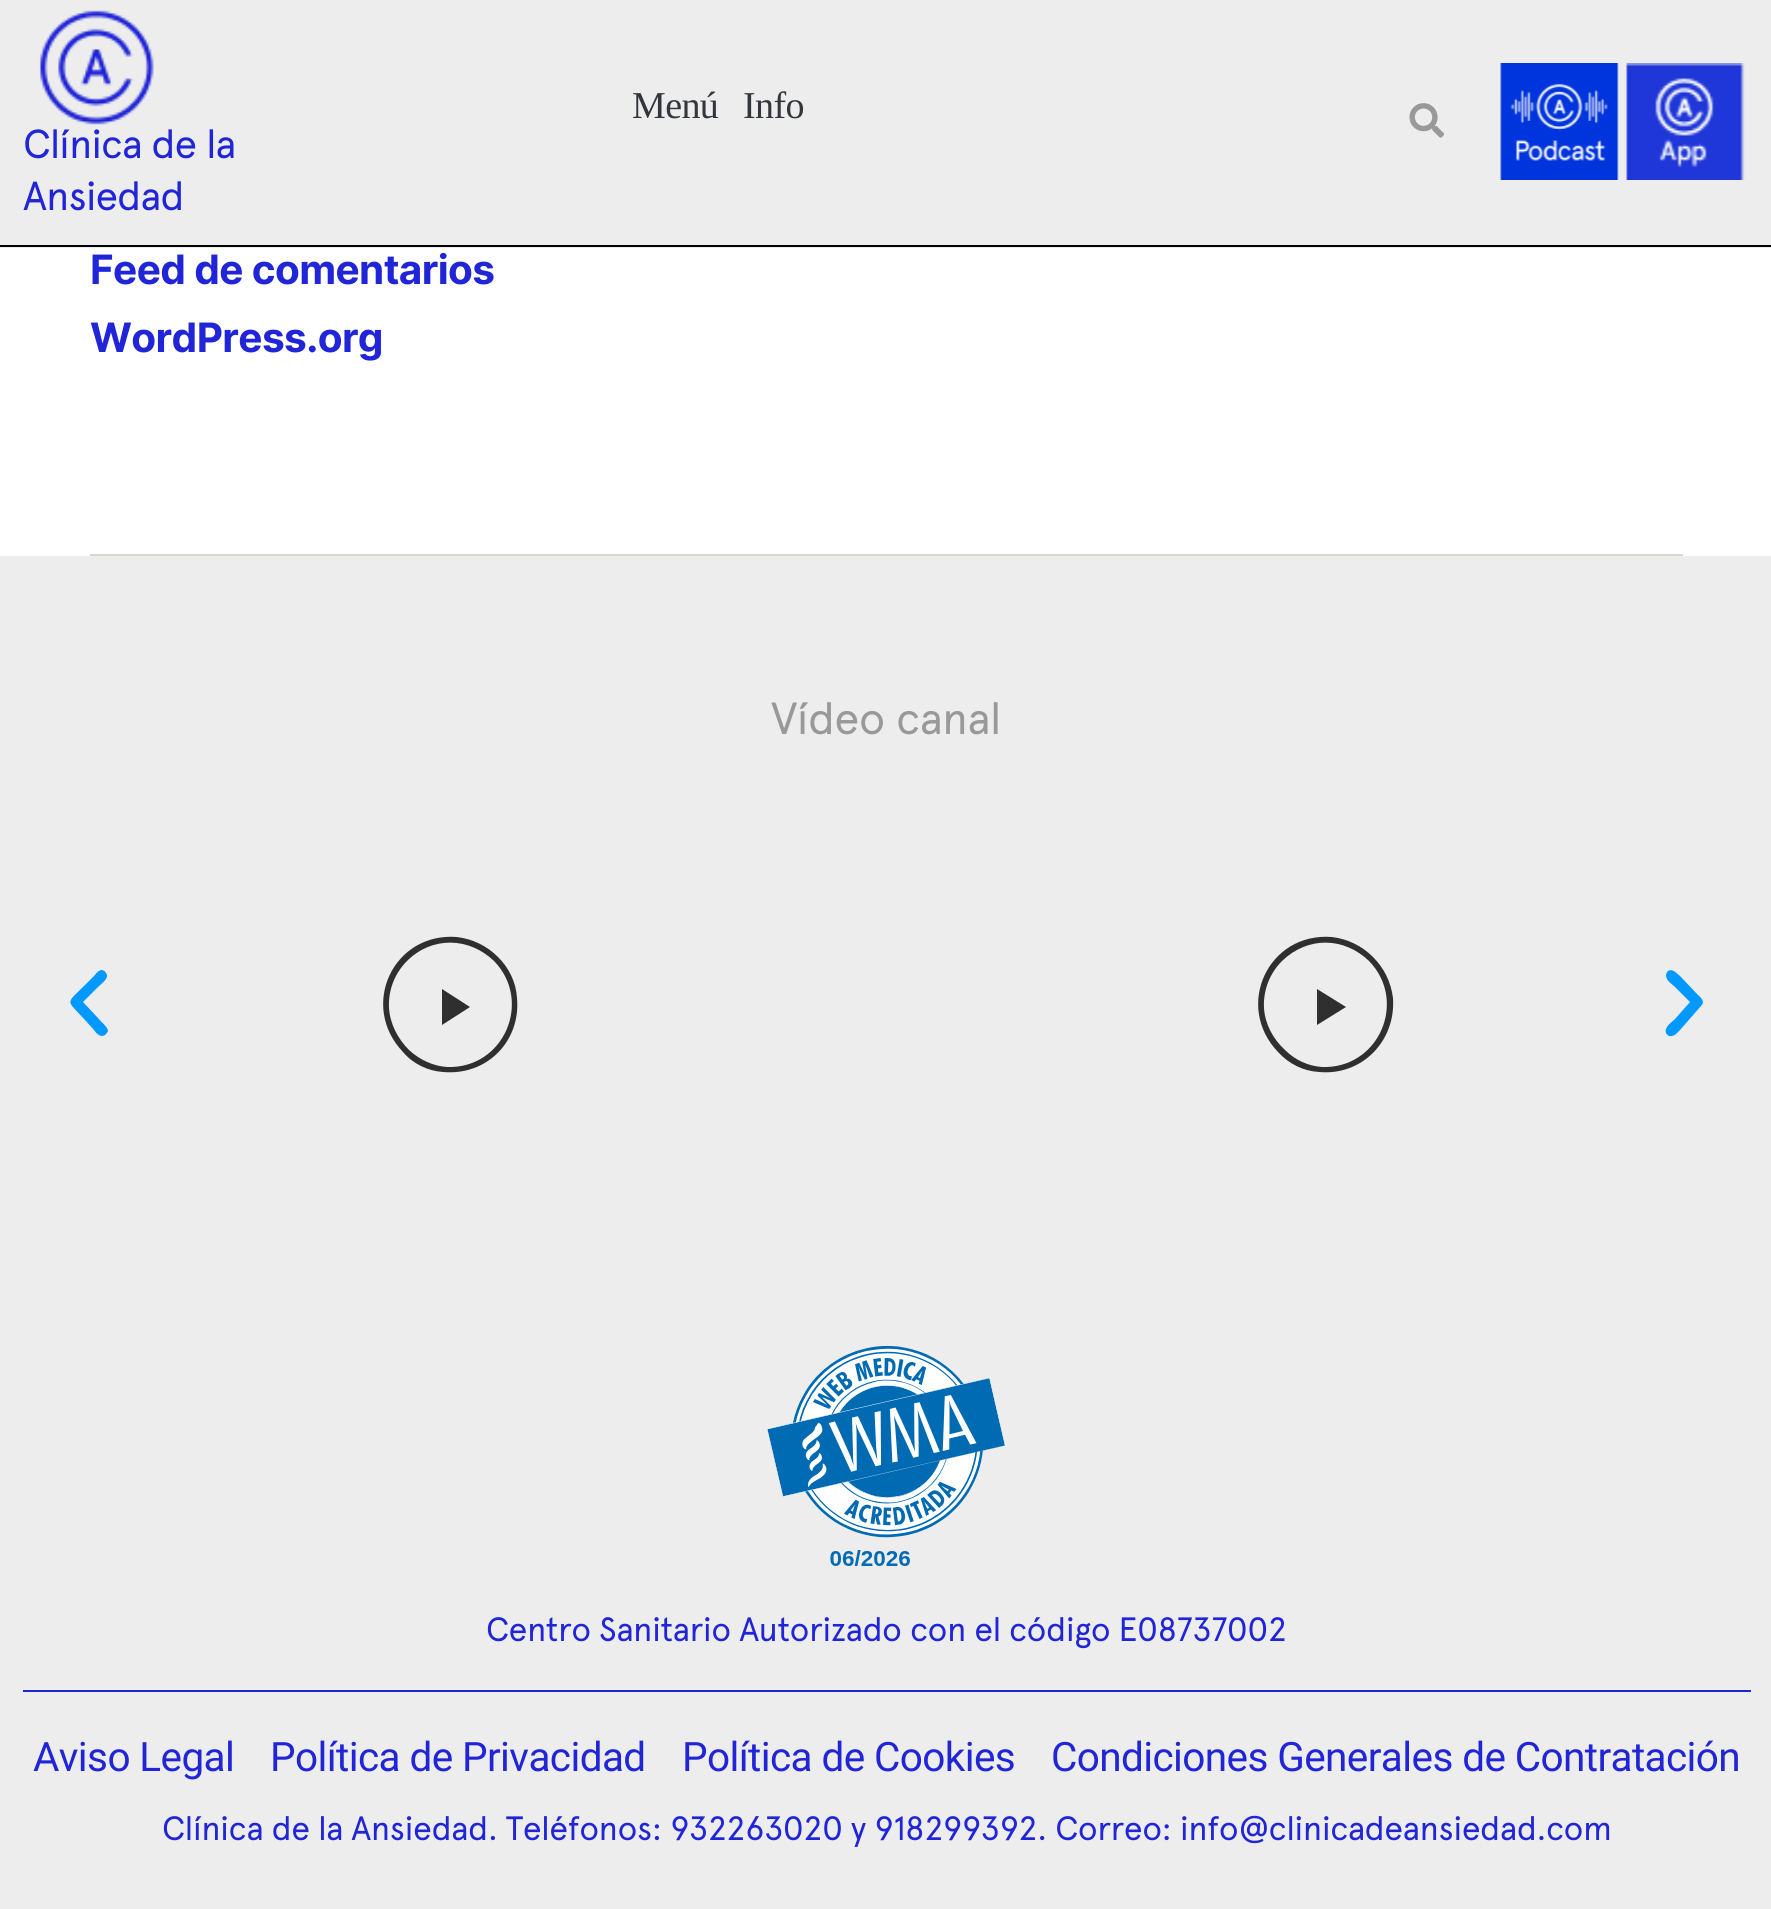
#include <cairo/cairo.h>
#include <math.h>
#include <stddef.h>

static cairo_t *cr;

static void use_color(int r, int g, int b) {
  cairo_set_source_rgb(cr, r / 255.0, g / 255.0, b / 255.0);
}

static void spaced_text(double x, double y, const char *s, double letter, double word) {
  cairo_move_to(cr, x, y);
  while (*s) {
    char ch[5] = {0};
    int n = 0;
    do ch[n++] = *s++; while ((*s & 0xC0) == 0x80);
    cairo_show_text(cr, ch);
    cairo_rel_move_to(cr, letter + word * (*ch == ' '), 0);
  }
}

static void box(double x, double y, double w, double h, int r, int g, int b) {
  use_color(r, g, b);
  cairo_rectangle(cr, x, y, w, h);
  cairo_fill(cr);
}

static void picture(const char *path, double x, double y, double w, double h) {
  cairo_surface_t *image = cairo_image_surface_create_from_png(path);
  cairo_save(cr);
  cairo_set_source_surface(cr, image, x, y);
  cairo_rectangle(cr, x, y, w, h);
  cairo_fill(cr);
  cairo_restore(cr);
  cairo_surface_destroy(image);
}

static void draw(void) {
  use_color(237, 237, 237);
  cairo_paint(cr);
  box(0, 245, 1771, 2, 0, 0, 0);
  picture("img_01.png", 1409, 103, 36, 35);
  picture("img_02.png", 1500, 63, 119, 117);
  picture("img_03.png", 1626, 63, 119, 117);
  picture("img_04.png", 40, 10, 114, 115);
  box(0, 248, 1771, 308, 255, 255, 255);
  box(90, 554, 1593, 2, 220, 215, 202);
  use_color(0, 153, 255);
  cairo_new_path(cr);
  cairo_move_to(cr, 102, 970);
  cairo_curve_to(cr, 98, 970, 96, 974, 94, 976);
  cairo_line_to(cr, 85, 985);
  cairo_curve_to(cr, 65, 1005, 66, 999, 85, 1020);
  cairo_line_to(cr, 94, 1030);
  cairo_curve_to(cr, 96, 1033, 100, 1038, 105, 1035);
  cairo_curve_to(cr, 106, 1034, 107, 1033, 108, 1031);
  cairo_curve_to(cr, 108, 1027, 100, 1021, 98, 1018);
  cairo_line_to(cr, 83, 1002);
  cairo_line_to(cr, 98, 987);
  cairo_curve_to(cr, 101, 984, 110, 978, 106, 973);
  cairo_curve_to(cr, 105, 971, 103, 970, 102, 970);
  cairo_close_path(cr);
  cairo_fill(cr);
  use_color(47, 47, 47);
  cairo_new_path(cr);
  cairo_move_to(cr, 498, 957);
  cairo_curve_to(cr, 487, 946, 473, 939, 457, 937);
  cairo_curve_to(cr, 393, 932, 359, 1006, 403, 1052);
  cairo_curve_to(cr, 413, 1064, 428, 1071, 443, 1072);
  cairo_curve_to(cr, 487, 1076, 521, 1041, 517, 998);
  cairo_curve_to(cr, 516, 982, 509, 968, 498, 957);
  cairo_close_path(cr);
  cairo_move_to(cr, 494, 961);
  cairo_curve_to(cr, 533, 1001, 504, 1069, 447, 1067);
  cairo_curve_to(cr, 433, 1066, 420, 1060, 409, 1050);
  cairo_curve_to(cr, 398, 1039, 390, 1024, 389, 1008);
  cairo_curve_to(cr, 388, 990, 395, 973, 407, 961);
  cairo_curve_to(cr, 432, 936, 469, 937, 494, 961);
  cairo_close_path(cr);
  cairo_move_to(cr, 442, 989);
  cairo_line_to(cr, 442, 1025);
  cairo_line_to(cr, 470, 1007);
  cairo_close_path(cr);
  cairo_fill(cr);
  cairo_new_path(cr);
  cairo_move_to(cr, 1373, 957);
  cairo_curve_to(cr, 1362, 946, 1348, 939, 1332, 937);
  cairo_curve_to(cr, 1268, 932, 1234, 1006, 1278, 1052);
  cairo_curve_to(cr, 1289, 1064, 1303, 1071, 1319, 1072);
  cairo_curve_to(cr, 1362, 1076, 1396, 1041, 1393, 998);
  cairo_curve_to(cr, 1391, 982, 1384, 968, 1373, 957);
  cairo_close_path(cr);
  cairo_move_to(cr, 1369, 961);
  cairo_curve_to(cr, 1408, 1001, 1379, 1069, 1322, 1067);
  cairo_curve_to(cr, 1308, 1066, 1295, 1060, 1285, 1050);
  cairo_curve_to(cr, 1273, 1039, 1265, 1024, 1264, 1008);
  cairo_curve_to(cr, 1263, 990, 1270, 973, 1282, 961);
  cairo_curve_to(cr, 1308, 936, 1344, 937, 1369, 961);
  cairo_close_path(cr);
  cairo_move_to(cr, 1317, 989);
  cairo_line_to(cr, 1317, 1025);
  cairo_line_to(cr, 1346, 1007);
  cairo_close_path(cr);
  cairo_fill(cr);
  use_color(0, 153, 255);
  cairo_new_path(cr);
  cairo_move_to(cr, 1701, 1006);
  cairo_curve_to(cr, 1706, 1001, 1700, 997, 1697, 994);
  cairo_line_to(cr, 1680, 976);
  cairo_curve_to(cr, 1677, 974, 1673, 968, 1668, 971);
  cairo_curve_to(cr, 1667, 972, 1666, 974, 1666, 975);
  cairo_curve_to(cr, 1666, 981, 1672, 984, 1675, 987);
  cairo_line_to(cr, 1690, 1002);
  cairo_line_to(cr, 1675, 1019);
  cairo_curve_to(cr, 1672, 1022, 1664, 1027, 1666, 1033);
  cairo_curve_to(cr, 1667, 1035, 1668, 1035, 1669, 1036);
  cairo_curve_to(cr, 1674, 1037, 1677, 1033, 1680, 1030);
  cairo_close_path(cr);
  cairo_fill(cr);
  picture("img_05.png", 767, 1346, 239, 220);
  box(23, 1690, 1728, 2, 32, 37, 216);
  cairo_select_font_face(cr, "Liberation Serif", CAIRO_FONT_SLANT_NORMAL, CAIRO_FONT_WEIGHT_NORMAL);
  cairo_set_font_size(cr, 38);
  use_color(51, 55, 61);
  spaced_text(632, 118, "Menú", -0.6, 0);
  spaced_text(743, 118, "Info", -0.6, 0);
  cairo_select_font_face(cr, "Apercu", CAIRO_FONT_SLANT_NORMAL, CAIRO_FONT_WEIGHT_NORMAL);
  cairo_set_font_size(cr, 40.5);
  use_color(32, 37, 216);
  spaced_text(23, 158, "Clínica de la", -1.1, 0);
  spaced_text(23, 210, "Ansiedad", -1.1, 0);
  cairo_select_font_face(cr, "Inter", CAIRO_FONT_SLANT_NORMAL, CAIRO_FONT_WEIGHT_BOLD);
  spaced_text(90, 284, "Feed de comentarios", -0.6, 0);
  spaced_text(90, 352, "WordPress.org", -0.6, 0);
  cairo_select_font_face(cr, "Apercu", CAIRO_FONT_SLANT_NORMAL, CAIRO_FONT_WEIGHT_NORMAL);
  cairo_set_font_size(cr, 45);
  use_color(153, 153, 153);
  spaced_text(771, 734, "Vídeo canal", -0.75, 0);
  cairo_set_font_size(cr, 33.75);
  use_color(32, 37, 216);
  spaced_text(486, 1641, "Centro Sanitario Autorizado con el código E08737002", -0.6, 0);
  cairo_select_font_face(cr, "Roboto", CAIRO_FONT_SLANT_NORMAL, CAIRO_FONT_WEIGHT_NORMAL);
  cairo_set_font_size(cr, 40.5);
  spaced_text(33, 1771, "Aviso Legal", -0.6, 0);
  spaced_text(270, 1771, "Política de Privacidad", -0.6, 0);
  spaced_text(682, 1771, "Política de Cookies", -0.6, 0);
  spaced_text(1051, 1771, "Condiciones Generales de Contratación", -0.6, 0);
  cairo_select_font_face(cr, "Apercu", CAIRO_FONT_SLANT_NORMAL, CAIRO_FONT_WEIGHT_NORMAL);
  cairo_set_font_size(cr, 33.75);
  spaced_text(162, 1840, "Clínica de la Ansiedad. Teléfonos: 932263020 y 918299392. Correo: info@clinicadeansiedad.com", -0.6, 0);
}

int main(void) {
  cairo_surface_t *surface = cairo_image_surface_create(CAIRO_FORMAT_RGB24, 1771, 1909);
  cr = cairo_create(surface);
  cairo_font_options_t *options = cairo_font_options_create();
  cairo_font_options_set_hint_metrics(options, CAIRO_HINT_METRICS_OFF);
  cairo_font_options_set_hint_style(options, CAIRO_HINT_STYLE_NONE);
  cairo_set_font_options(cr, options);
  cairo_set_miter_limit(cr, 4);
  draw();
  cairo_surface_write_to_png(surface, "out.png");
  cairo_font_options_destroy(options);
  cairo_destroy(cr);
  cairo_surface_destroy(surface);
  return 0;
}
